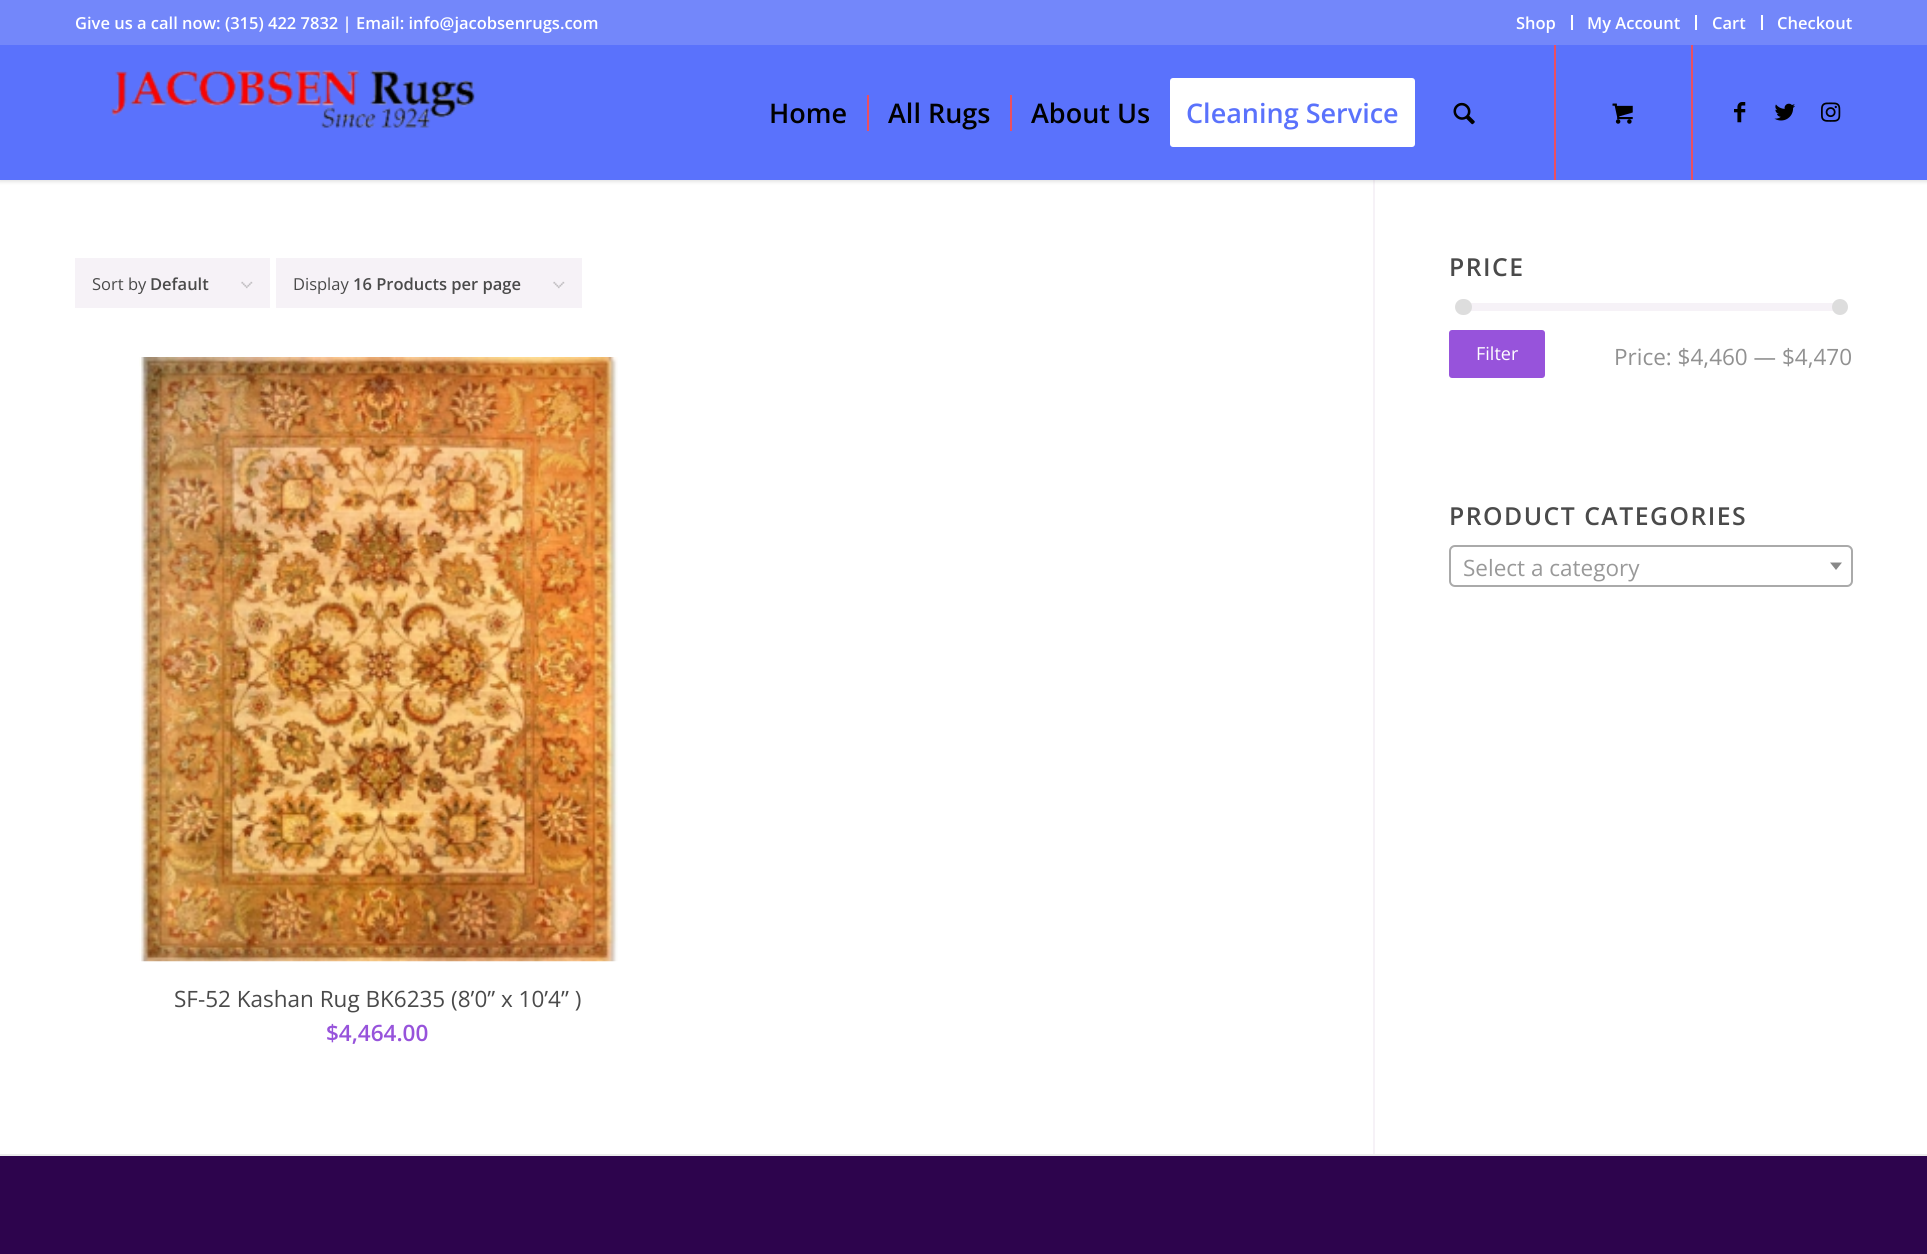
#include <cairo/cairo.h>
#include <math.h>
#include <stddef.h>

static cairo_t *cr;

static void use_color(int r, int g, int b) {
  cairo_set_source_rgb(cr, r / 255.0, g / 255.0, b / 255.0);
}

static void text(double x, double y, const char *s, const char *family, double size, int italic, int bold, int r, int g, int b) {
  cairo_select_font_face(cr, family, italic ? CAIRO_FONT_SLANT_ITALIC : CAIRO_FONT_SLANT_NORMAL,
    bold ? CAIRO_FONT_WEIGHT_BOLD : CAIRO_FONT_WEIGHT_NORMAL);
  cairo_set_font_size(cr, size);
  use_color(r, g, b);
  cairo_move_to(cr, x, y);
  cairo_show_text(cr, s);
}

static void spaced_text(double x, double y, const char *s, double letter, double word) {
  cairo_move_to(cr, x, y);
  while (*s) {
    char ch[5] = {0};
    int n = 0;
    do ch[n++] = *s++; while ((*s & 0xC0) == 0x80);
    cairo_show_text(cr, ch);
    cairo_rel_move_to(cr, letter + word * (*ch == ' '), 0);
  }
}

static void box(double x, double y, double w, double h, int r, int g, int b) {
  use_color(r, g, b);
  cairo_rectangle(cr, x, y, w, h);
  cairo_fill(cr);
}

static void round_rect(double x, double y, double w, double h, double r) {
  cairo_new_sub_path(cr);
  cairo_arc(cr, x + w - r, y + h - r, r, 0, M_PI / 2);
  cairo_arc(cr, x + r, y + h - r, r, M_PI / 2, M_PI);
  cairo_arc(cr, x + r, y + r, r, M_PI, 1.5 * M_PI);
  cairo_arc(cr, x + w - r, y + r, r, 1.5 * M_PI, 2 * M_PI);
  cairo_close_path(cr);
}

static void shadow(double x, double y, double w, double h, double r, double blur, double alpha) {
  cairo_push_group_with_content(cr, CAIRO_CONTENT_ALPHA);
  cairo_set_operator(cr, CAIRO_OPERATOR_SOURCE);
  for (int i = 15; i >= -15 && fmin(w, h) + blur * i / 3 > 0; i -= 2) {
    double e = blur * i / 6;
    cairo_set_source_rgba(cr, 0, 0, 0, alpha * erfc((i - 1) / 8.5) / 2);
    round_rect(x - e, y - e, w + 2 * e, h + 2 * e, fmax(0, fmin(r + e + blur * .6, fmin(w, h) / 2 + e)));
    cairo_fill(cr);
  }
  cairo_pattern_t *soft = cairo_pop_group(cr);
  cairo_mask(cr, soft);
  cairo_pattern_destroy(soft);
}

static void picture(const char *path, double x, double y, double w, double h) {
  cairo_surface_t *image = cairo_image_surface_create_from_png(path);
  cairo_save(cr);
  cairo_set_source_surface(cr, image, x, y);
  cairo_rectangle(cr, x, y, w, h);
  cairo_fill(cr);
  cairo_restore(cr);
  cairo_surface_destroy(image);
}

static void draw(void) {
  use_color(255, 255, 255);
  cairo_paint(cr);
  box(1373, 179, 2, 975, 246, 242, 247);
  use_color(0, 0, 0);
  shadow(-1, -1, 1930, 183, 0, 1.5, 0.1);
  box(0, 0, 1927, 45, 115, 135, 250);
  box(1571, 15, 2, 15, 255, 255, 255);
  box(1695, 15, 2, 15, 255, 255, 255);
  box(1761, 15, 2, 15, 255, 255, 255);
  box(0, 45, 1927, 135, 90, 114, 252);
  picture("img_01.png", 111, 70, 364, 58);
  box(1554, 45, 2, 135, 235, 79, 97);
  box(867, 95, 2, 36, 235, 79, 97);
  box(1010, 95, 2, 36, 235, 79, 97);
  use_color(255, 255, 255);
  round_rect(1171.5, 79.5, 242, 66, 1.5);
  cairo_fill_preserve(cr);
  cairo_set_line_width(cr, 3);
  cairo_stroke(cr);
  picture("img_02.png", 1453, 102, 22, 23);
  box(1691, 45, 2, 135, 235, 79, 97);
  picture("img_03.png", 1612, 103, 21, 21);
  picture("img_04.png", 1734, 102, 12, 21);
  picture("img_05.png", 1774, 103, 21, 18);
  picture("img_06.png", 1821, 102, 20, 20);
  box(75, 258, 195, 50, 246, 242, 247);
  picture("img_07.png", 241, 281, 12, 8);
  box(276, 258, 306, 50, 246, 242, 247);
  picture("img_07.png", 553, 281, 12, 8);
  picture("img_08.png", 139, 357, 479, 605);
  box(1463, 303, 376, 8, 246, 242, 247);
  use_color(221, 221, 221);
  round_rect(1455, 299, 17, 16, 8);
  cairo_fill(cr);
  cairo_arc(cr, 1840, 307, 8, 0, 2 * M_PI);
  cairo_fill(cr);
  use_color(151, 83, 219);
  round_rect(1449, 330, 96, 48, 3);
  cairo_fill(cr);
  round_rect(1450, 546, 402, 40, 5);
  use_color(170, 170, 170);
  cairo_set_line_width(cr, 2);
  cairo_stroke(cr);
  use_color(136, 136, 136);
  cairo_new_path(cr);
  cairo_move_to(cr, 1830, 562.5);
  cairo_line_to(cr, 1842, 562.5);
  cairo_line_to(cr, 1836, 570);
  cairo_close_path(cr);
  cairo_fill(cr);
  box(0, 1156, 1927, 98, 45, 4, 77);
  box(0, 1154, 1927, 2, 235, 235, 235);
  text(75, 29, "Give us a call now: (315) 422 7832 | Email: info@jacobsenrugs.com", "Open Sans SemiBold", 16.5, 0, 0, 255, 255, 255);
  text(1516, 29, "Shop", "Open Sans SemiBold", 16.5, 0, 0, 255, 255, 255);
  text(1587, 29, "My Account", "Open Sans SemiBold", 16.5, 0, 0, 255, 255, 255);
  text(1712, 29, "Cart", "Open Sans SemiBold", 16.5, 0, 0, 255, 255, 255);
  text(1777, 29, "Checkout", "Open Sans SemiBold", 16.5, 0, 0, 255, 255, 255);
  text(769, 123, "Home", "Open Sans SemiBold", 27, 0, 0, 0, 0, 0);
  text(888, 123, "All Rugs", "Open Sans SemiBold", 27, 0, 0, 0, 0, 0);
  text(1031, 123, "About Us", "Open Sans SemiBold", 27, 0, 0, 0, 0, 0);
  text(1186, 123, "Cleaning Service", "Open Sans SemiBold", 27, 0, 0, 90, 114, 252);
  text(92, 290, "Sort by", "Open Sans", 16.5, 0, 0, 74, 74, 74);
  text(150, 290, "Default", "Open Sans SemiBold", 16.5, 0, 0, 74, 74, 74);
  text(293, 290, "Display", "Open Sans", 16.5, 0, 0, 74, 74, 74);
  text(353, 290, "16 Products per page", "Open Sans SemiBold", 16.5, 0, 0, 74, 74, 74);
  text(174, 1007, "SF-52 Kashan Rug BK6235 (8’0” x 10’4” )", "Open Sans", 22.5, 0, 0, 74, 74, 74);
  text(326, 1041, "$4,464.00", "Open Sans SemiBold", 22.5, 0, 0, 151, 83, 219);
  cairo_set_font_size(cr, 24.75);
  use_color(74, 74, 74);
  spaced_text(1449, 276, "PRICE", 1.5, 0);
  text(1476, 360, "Filter", "Open Sans", 18, 0, 0, 255, 255, 255);
  text(1614, 365, "Price: $4,460 — $4,470", "Open Sans", 22.5, 0, 0, 145, 145, 145);
  cairo_select_font_face(cr, "Open Sans SemiBold", CAIRO_FONT_SLANT_NORMAL, CAIRO_FONT_WEIGHT_NORMAL);
  cairo_set_font_size(cr, 24.75);
  use_color(74, 74, 74);
  spaced_text(1449, 525, "PRODUCT CATEGORIES", 1.5, 0);
  text(1463, 576, "Select a category", "Open Sans", 22.5, 0, 0, 153, 153, 153);
}

int main(void) {
  cairo_surface_t *surface = cairo_image_surface_create(CAIRO_FORMAT_RGB24, 1927, 1254);
  cr = cairo_create(surface);
  cairo_font_options_t *options = cairo_font_options_create();
  cairo_font_options_set_hint_metrics(options, CAIRO_HINT_METRICS_OFF);
  cairo_font_options_set_hint_style(options, CAIRO_HINT_STYLE_NONE);
  cairo_set_font_options(cr, options);
  cairo_set_miter_limit(cr, 4);
  draw();
  cairo_surface_write_to_png(surface, "out.png");
  cairo_font_options_destroy(options);
  cairo_destroy(cr);
  cairo_surface_destroy(surface);
  return 0;
}
